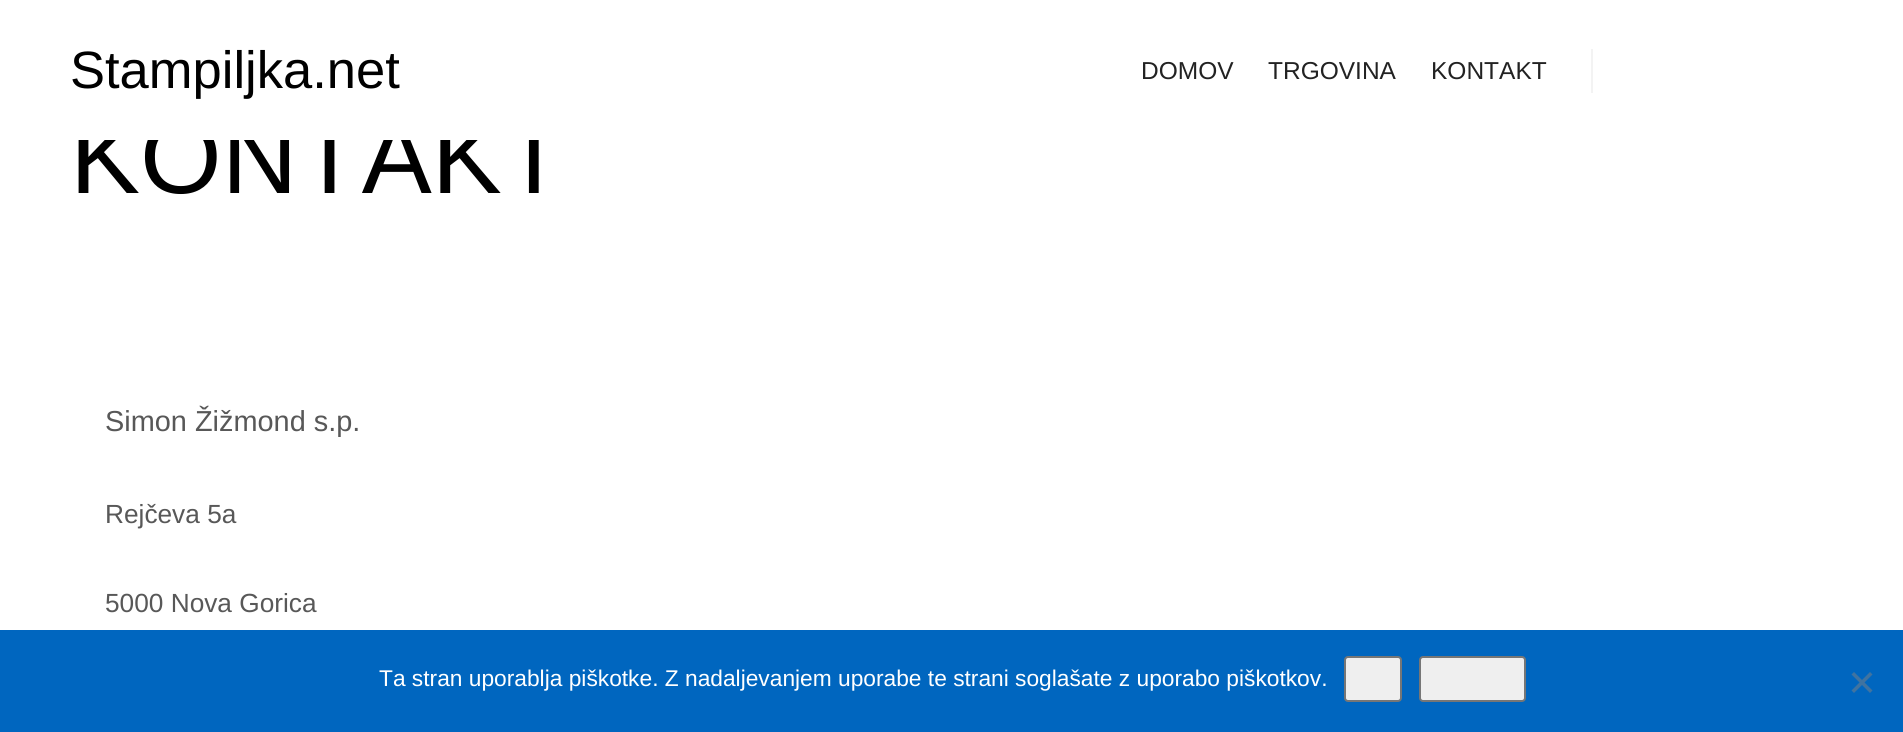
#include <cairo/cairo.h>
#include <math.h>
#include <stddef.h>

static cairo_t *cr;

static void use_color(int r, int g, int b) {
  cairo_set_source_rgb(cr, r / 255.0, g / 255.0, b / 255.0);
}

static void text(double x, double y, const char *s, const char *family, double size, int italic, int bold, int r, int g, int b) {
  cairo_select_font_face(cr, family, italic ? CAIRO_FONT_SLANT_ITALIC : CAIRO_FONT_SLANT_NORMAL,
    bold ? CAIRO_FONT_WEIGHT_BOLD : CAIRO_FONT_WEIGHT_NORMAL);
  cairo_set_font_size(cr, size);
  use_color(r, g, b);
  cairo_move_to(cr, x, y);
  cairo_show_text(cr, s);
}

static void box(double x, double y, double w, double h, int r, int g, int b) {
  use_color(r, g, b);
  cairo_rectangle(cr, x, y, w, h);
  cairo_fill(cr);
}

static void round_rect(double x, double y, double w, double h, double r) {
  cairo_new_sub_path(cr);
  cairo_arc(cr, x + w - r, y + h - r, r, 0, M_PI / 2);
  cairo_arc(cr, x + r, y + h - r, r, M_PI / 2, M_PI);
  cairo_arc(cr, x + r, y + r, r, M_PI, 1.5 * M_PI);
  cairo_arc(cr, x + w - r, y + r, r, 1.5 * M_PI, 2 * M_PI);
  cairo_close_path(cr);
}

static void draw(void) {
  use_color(255, 255, 255);
  cairo_paint(cr);
  box(1591, 49, 2, 44, 243, 243, 243);
  box(0, 630, 1903, 102, 0, 102, 191);
  use_color(239, 239, 239);
  round_rect(1345, 657, 56, 44, 3);
  cairo_fill_preserve(cr);
  use_color(118, 118, 118);
  cairo_stroke(cr);
  use_color(239, 239, 239);
  round_rect(1420, 657, 105, 44, 3);
  cairo_fill_preserve(cr);
  use_color(118, 118, 118);
  cairo_stroke(cr);
  use_color(64, 115, 160);
  cairo_new_path(cr);
  cairo_move_to(cr, 1870, 672);
  cairo_line_to(cr, 1872.5, 674.5);
  cairo_line_to(cr, 1854, 693);
  cairo_line_to(cr, 1851.5, 690.5);
  cairo_close_path(cr);
  cairo_fill(cr);
  cairo_new_path(cr);
  cairo_move_to(cr, 1851.5, 674.5);
  cairo_line_to(cr, 1854, 672);
  cairo_line_to(cr, 1872.5, 690.5);
  cairo_line_to(cr, 1870, 693);
  cairo_close_path(cr);
  cairo_fill(cr);
  text(70, 88, "Stampiljka.net", "Liberation Sans", 52.5, 0, 0, 0, 0, 0);
  text(1141, 79, "DOMOV", "Liberation Sans", 24.5, 0, 0, 34, 34, 34);
  text(1268, 79, "TRGOVINA", "Liberation Sans", 24.5, 0, 0, 34, 34, 34);
  text(1431, 79, "KONTAKT", "Liberation Sans", 24.5, 0, 0, 34, 34, 34);
  text(70, 193, "KONTAKT", "Liberation Sans", 105, 0, 0, 0, 0, 0);
  box(78, 119, 486, 21, 255, 255, 255);
  text(105, 431, "Simon Žižmond s.p.", "Liberation Sans", 28.9, 0, 0, 88, 88, 88);
  text(105, 523, "Rejčeva 5a", "Liberation Sans", 26.25, 0, 0, 88, 88, 88);
  text(105, 612, "5000 Nova Gorica", "Liberation Sans", 26.25, 0, 0, 88, 88, 88);
  text(379, 686, "Ta stran uporablja piškotke. Z nadaljevanjem uporabe te strani soglašate z uporabo piškotkov.", "Liberation Sans", 22.75, 0, 0, 255, 255, 255);
}

int main(void) {
  cairo_surface_t *surface = cairo_image_surface_create(CAIRO_FORMAT_RGB24, 1903, 732);
  cr = cairo_create(surface);
  cairo_font_options_t *options = cairo_font_options_create();
  cairo_font_options_set_hint_metrics(options, CAIRO_HINT_METRICS_OFF);
  cairo_font_options_set_hint_style(options, CAIRO_HINT_STYLE_NONE);
  cairo_set_font_options(cr, options);
  cairo_set_miter_limit(cr, 4);
  draw();
  cairo_surface_write_to_png(surface, "out.png");
  cairo_font_options_destroy(options);
  cairo_destroy(cr);
  cairo_surface_destroy(surface);
  return 0;
}
